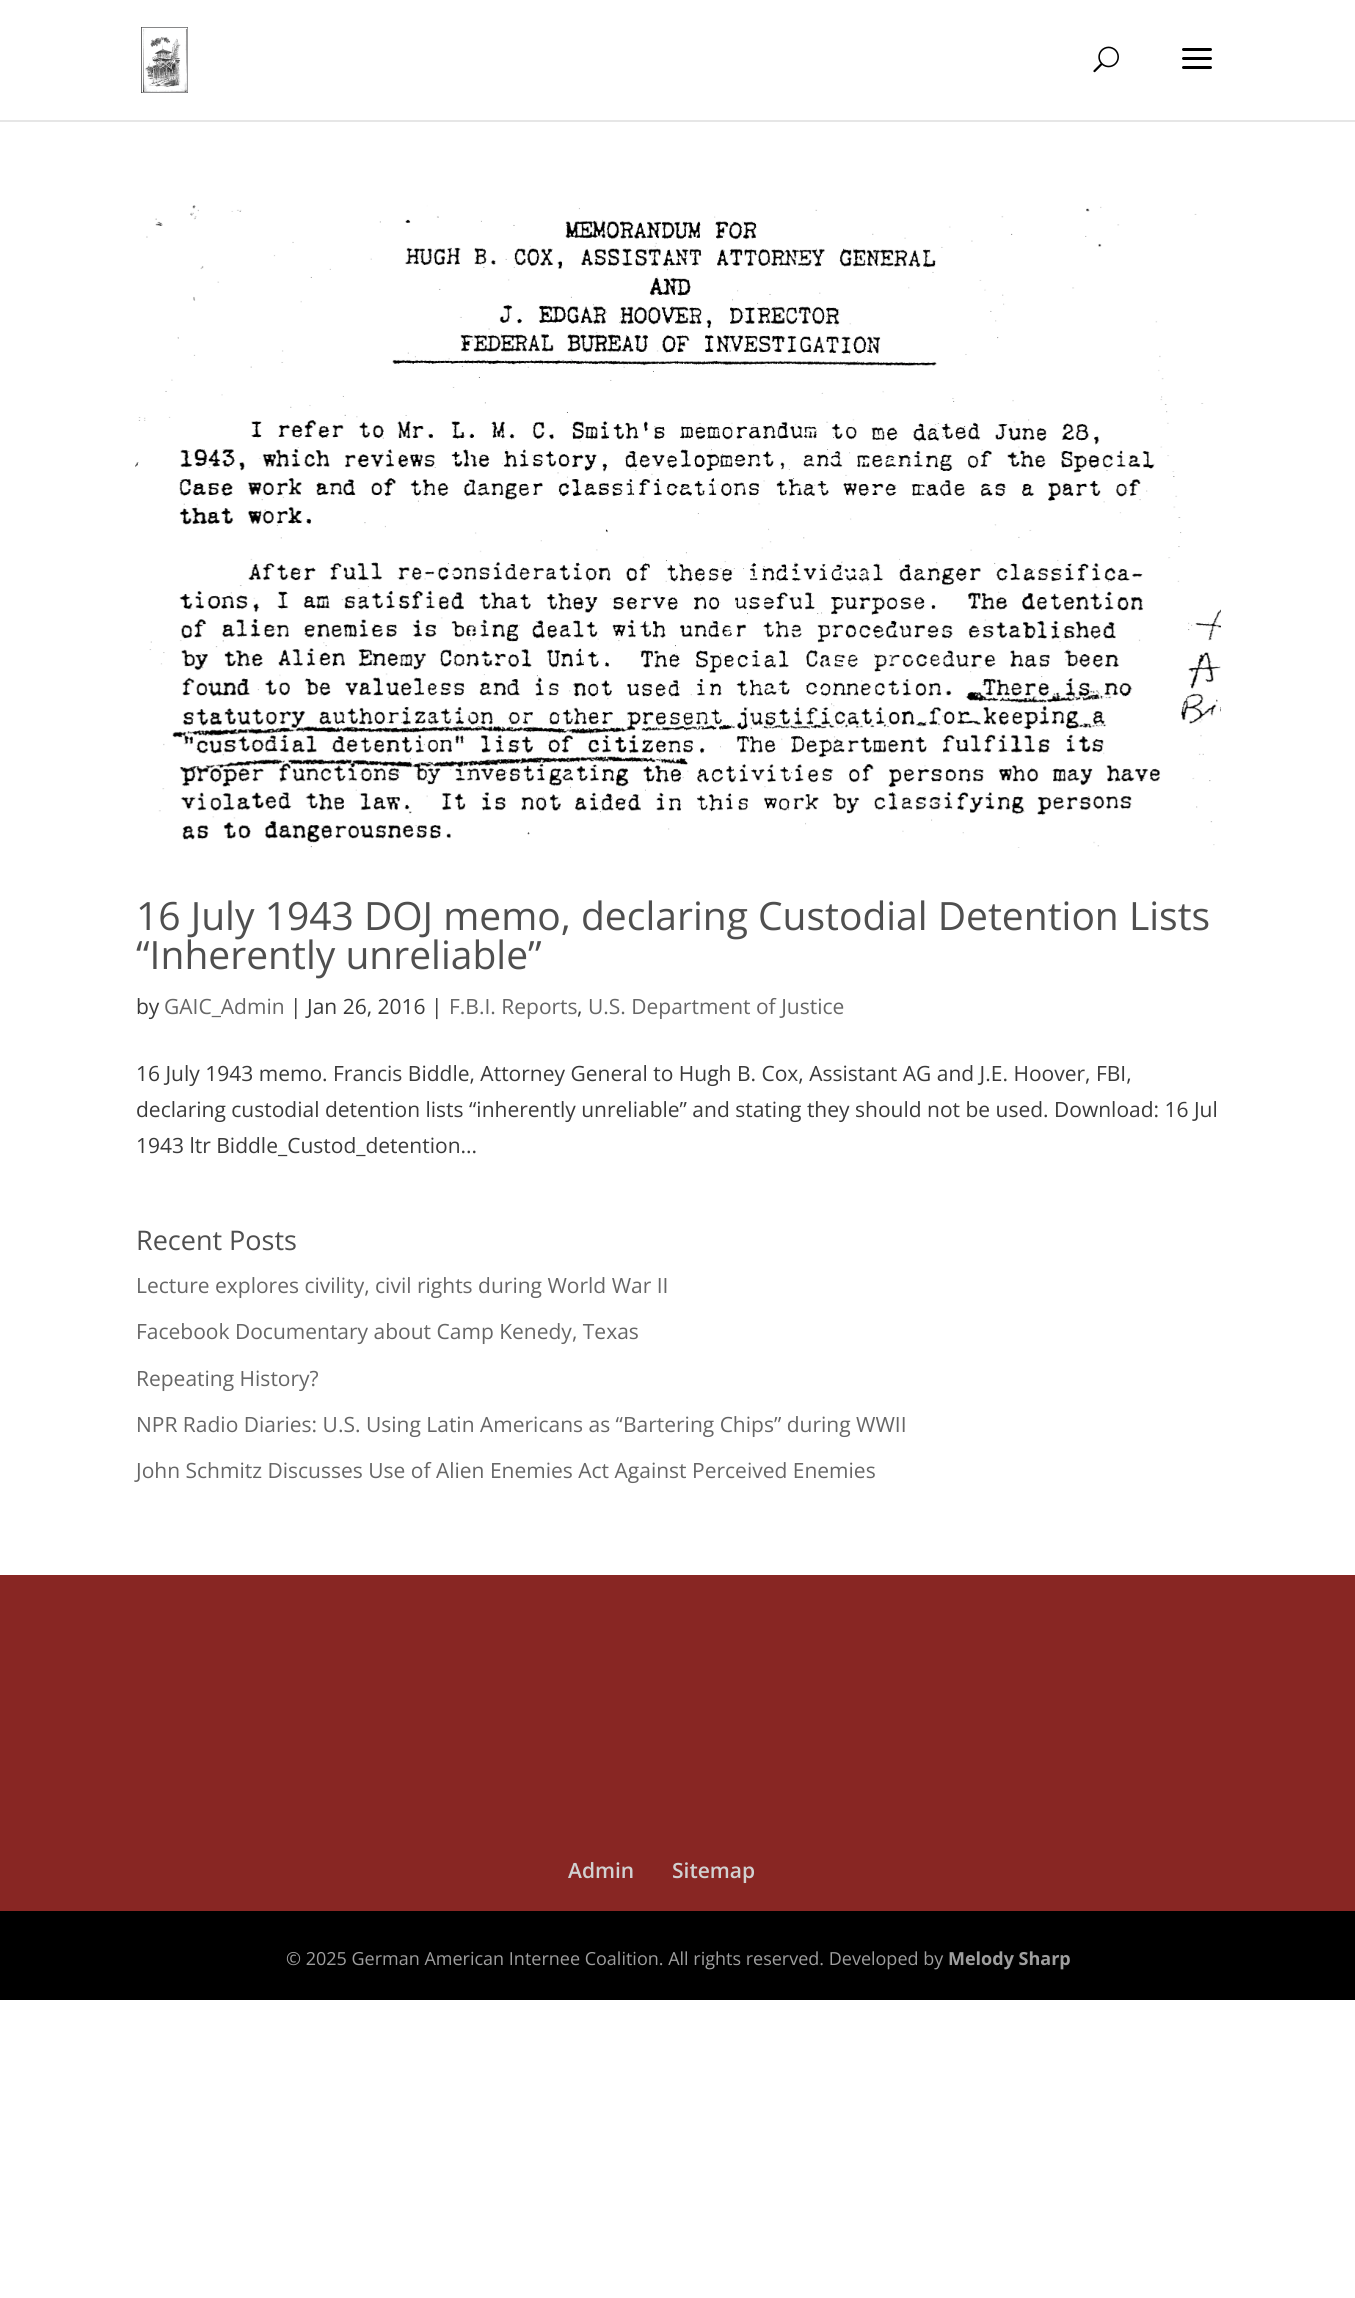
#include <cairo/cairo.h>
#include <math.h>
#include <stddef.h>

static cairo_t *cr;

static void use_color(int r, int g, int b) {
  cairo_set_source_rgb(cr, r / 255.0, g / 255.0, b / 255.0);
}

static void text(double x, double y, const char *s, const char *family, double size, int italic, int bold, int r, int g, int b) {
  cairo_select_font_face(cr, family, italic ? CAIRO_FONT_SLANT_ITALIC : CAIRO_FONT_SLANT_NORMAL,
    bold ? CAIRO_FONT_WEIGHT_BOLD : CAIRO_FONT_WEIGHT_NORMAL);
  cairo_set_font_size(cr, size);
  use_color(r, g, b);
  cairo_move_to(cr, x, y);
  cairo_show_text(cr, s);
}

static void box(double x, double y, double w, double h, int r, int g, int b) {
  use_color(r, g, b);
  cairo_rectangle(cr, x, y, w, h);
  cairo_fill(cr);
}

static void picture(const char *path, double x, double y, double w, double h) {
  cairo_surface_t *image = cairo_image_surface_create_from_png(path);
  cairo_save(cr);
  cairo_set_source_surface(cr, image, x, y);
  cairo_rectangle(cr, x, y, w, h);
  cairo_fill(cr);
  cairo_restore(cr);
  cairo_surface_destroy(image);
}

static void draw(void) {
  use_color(255, 255, 255);
  cairo_paint(cr);
  box(0, 120, 1355, 2, 230, 230, 230);
  picture("img_01.png", 141, 27, 47, 66);
  picture("img_02.png", 1093, 46, 26, 27);
  picture("img_03.png", 1182, 48, 30, 21);
  picture("img_04.png", 135, 205, 1086, 643);
  box(0, 1575, 1355, 336, 136, 38, 35);
  box(0, 1911, 1355, 89, 0, 0, 0);
  text(136, 930, "16 July 1943 DOJ memo, declaring Custodial Detention Lists", "Open Sans", 39, 0, 0, 79, 79, 79);
  text(136, 969, "“Inherently unreliable”", "Open Sans", 39, 0, 0, 79, 79, 79);
  text(136, 1014, "by", "Open Sans", 21, 0, 0, 58, 58, 58);
  text(164, 1014, "GAIC_Admin", "Open Sans", 21, 0, 0, 102, 102, 102);
  text(290, 1014, "| Jan 26, 2016 |", "Open Sans", 21, 0, 0, 58, 58, 58);
  text(449, 1014, "F.B.I. Reports", "Open Sans", 21, 0, 0, 102, 102, 102);
  text(577, 1014, ",", "Open Sans", 21, 0, 0, 58, 58, 58);
  text(588, 1014, "U.S. Department of Justice", "Open Sans", 21, 0, 0, 102, 102, 102);
  text(136, 1081, "16 July 1943 memo. Francis Biddle, Attorney General to Hugh B. Cox, Assistant AG and J.E. Hoover, FBI,", "Open Sans", 21, 0, 0, 58, 58, 58);
  text(136, 1117, "declaring custodial detention lists “inherently unreliable” and stating they should not be used. Download: 16 Jul", "Open Sans", 21, 0, 0, 58, 58, 58);
  text(136, 1153, "1943 ltr Biddle_Custod_detention...", "Open Sans", 21, 0, 0, 58, 58, 58);
  text(136, 1250, "Recent Posts", "Open Sans", 27, 0, 0, 79, 79, 79);
  text(136, 1293, "Lecture explores civility, civil rights during World War II", "Open Sans", 21, 0, 0, 102, 102, 102);
  text(136, 1339, "Facebook Documentary about Camp Kenedy, Texas", "Open Sans", 21, 0, 0, 102, 102, 102);
  text(136, 1386, "Repeating History?", "Open Sans", 21, 0, 0, 102, 102, 102);
  text(136, 1432, "NPR Radio Diaries: U.S. Using Latin Americans as “Bartering Chips” during WWII", "Open Sans", 21, 0, 0, 102, 102, 102);
  text(136, 1478, "John Schmitz Discusses Use of Alien Enemies Act Against Perceived Enemies", "Open Sans", 21, 0, 0, 102, 102, 102);
  text(568, 1878, "Admin", "Open Sans SemiBold", 21, 0, 0, 209, 209, 209);
  text(672, 1878, "Sitemap", "Open Sans SemiBold", 21, 0, 0, 209, 209, 209);
  text(286, 1965, "© 2025 German American Internee Coalition. All rights reserved. Developed by", "Open Sans", 18, 0, 0, 158, 158, 158);
  text(948, 1965, "Melody Sharp", "Open Sans", 18, 0, 1, 158, 158, 158);
}

int main(void) {
  cairo_surface_t *surface = cairo_image_surface_create(CAIRO_FORMAT_RGB24, 1355, 2298);
  cr = cairo_create(surface);
  cairo_font_options_t *options = cairo_font_options_create();
  cairo_font_options_set_hint_metrics(options, CAIRO_HINT_METRICS_OFF);
  cairo_font_options_set_hint_style(options, CAIRO_HINT_STYLE_NONE);
  cairo_set_font_options(cr, options);
  cairo_set_miter_limit(cr, 4);
  draw();
  cairo_surface_write_to_png(surface, "out.png");
  cairo_font_options_destroy(options);
  cairo_destroy(cr);
  cairo_surface_destroy(surface);
  return 0;
}
